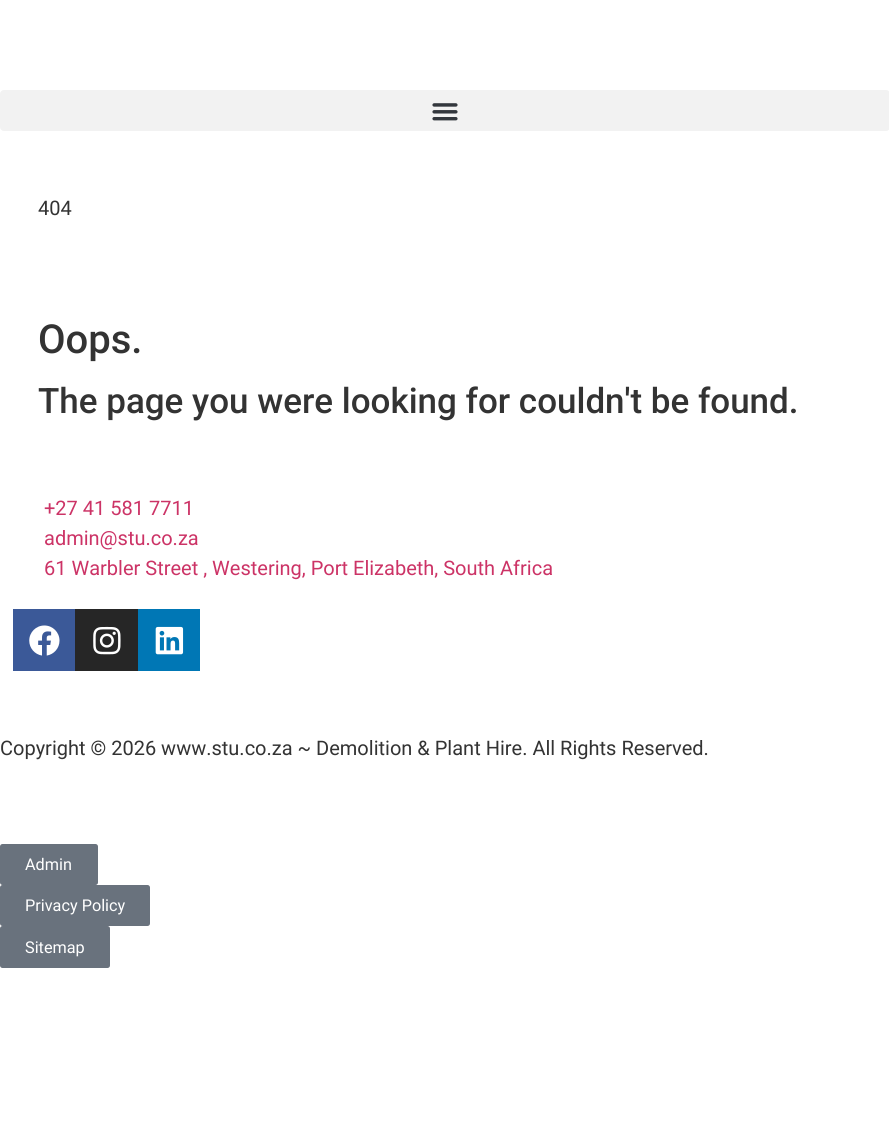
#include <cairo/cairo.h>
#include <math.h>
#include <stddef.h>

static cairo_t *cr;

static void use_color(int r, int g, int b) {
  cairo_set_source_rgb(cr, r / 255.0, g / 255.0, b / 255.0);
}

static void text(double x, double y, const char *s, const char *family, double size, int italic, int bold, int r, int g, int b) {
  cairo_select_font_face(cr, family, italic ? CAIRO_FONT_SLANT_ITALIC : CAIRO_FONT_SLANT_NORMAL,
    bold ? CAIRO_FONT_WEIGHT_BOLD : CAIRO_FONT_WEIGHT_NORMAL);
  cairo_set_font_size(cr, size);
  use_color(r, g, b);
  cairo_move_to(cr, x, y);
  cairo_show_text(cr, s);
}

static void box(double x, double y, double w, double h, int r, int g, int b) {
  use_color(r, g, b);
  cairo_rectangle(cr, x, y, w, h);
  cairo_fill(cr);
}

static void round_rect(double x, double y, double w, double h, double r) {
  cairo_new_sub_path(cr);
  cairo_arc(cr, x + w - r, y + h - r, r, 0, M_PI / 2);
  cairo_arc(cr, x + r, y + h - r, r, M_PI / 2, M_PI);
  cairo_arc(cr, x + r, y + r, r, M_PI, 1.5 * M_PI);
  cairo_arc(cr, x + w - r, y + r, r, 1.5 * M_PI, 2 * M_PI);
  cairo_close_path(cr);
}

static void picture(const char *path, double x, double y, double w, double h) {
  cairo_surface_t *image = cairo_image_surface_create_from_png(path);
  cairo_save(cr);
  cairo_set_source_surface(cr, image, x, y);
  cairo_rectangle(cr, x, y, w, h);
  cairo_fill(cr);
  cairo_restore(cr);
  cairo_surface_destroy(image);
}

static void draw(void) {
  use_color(255, 255, 255);
  cairo_paint(cr);
  use_color(242, 242, 242);
  round_rect(0, 90, 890, 41, 4);
  cairo_fill(cr);
  picture("img_01.png", 432, 103, 26, 18);
  box(13, 609, 62, 62, 59, 89, 152);
  picture("img_02.png", 29, 625, 31, 31);
  box(75, 609, 63, 62, 38, 38, 38);
  picture("img_03.png", 93, 626, 28, 29);
  box(138, 609, 62, 62, 0, 119, 181);
  picture("img_04.png", 155, 626, 29, 29);
  use_color(105, 114, 125);
  round_rect(0, 844, 98, 41, 2.5);
  cairo_fill(cr);
  round_rect(0, 885, 150, 41, 2.5);
  cairo_fill(cr);
  round_rect(0, 926, 110, 42, 2.5);
  cairo_fill(cr);
  text(38, 215, "404", "Roboto", 20, 0, 0, 51, 51, 51);
  text(38, 353, "Oops.", "Roboto Medium", 40, 0, 0, 51, 51, 51);
  text(38, 413, "The page you were looking for couldn't be found.", "Roboto Medium", 35, 0, 0, 51, 51, 51);
  text(44, 515, "+27 41 581 7711", "Roboto", 20, 0, 0, 204, 51, 102);
  text(44, 545, "admin@stu.co.za", "Roboto", 20, 0, 0, 204, 51, 102);
  text(44, 575, "61 Warbler Street , Westering, Port Elizabeth, South Africa", "Roboto", 20, 0, 0, 204, 51, 102);
  text(0, 755, "Copyright © 2026 www.stu.co.za ~ Demolition & Plant Hire. All Rights Reserved.", "Roboto", 20, 0, 0, 51, 51, 51);
  text(25, 870, "Admin", "Roboto", 16.25, 0, 0, 255, 255, 255);
  text(25, 911, "Privacy Policy", "Roboto", 16.25, 0, 0, 255, 255, 255);
  text(25, 953, "Sitemap", "Roboto", 16.25, 0, 0, 255, 255, 255);
}

int main(void) {
  cairo_surface_t *surface = cairo_image_surface_create(CAIRO_FORMAT_RGB24, 889, 1125);
  cr = cairo_create(surface);
  cairo_font_options_t *options = cairo_font_options_create();
  cairo_font_options_set_hint_metrics(options, CAIRO_HINT_METRICS_OFF);
  cairo_font_options_set_hint_style(options, CAIRO_HINT_STYLE_NONE);
  cairo_set_font_options(cr, options);
  cairo_set_miter_limit(cr, 4);
  draw();
  cairo_surface_write_to_png(surface, "out.png");
  cairo_font_options_destroy(options);
  cairo_destroy(cr);
  cairo_surface_destroy(surface);
  return 0;
}
